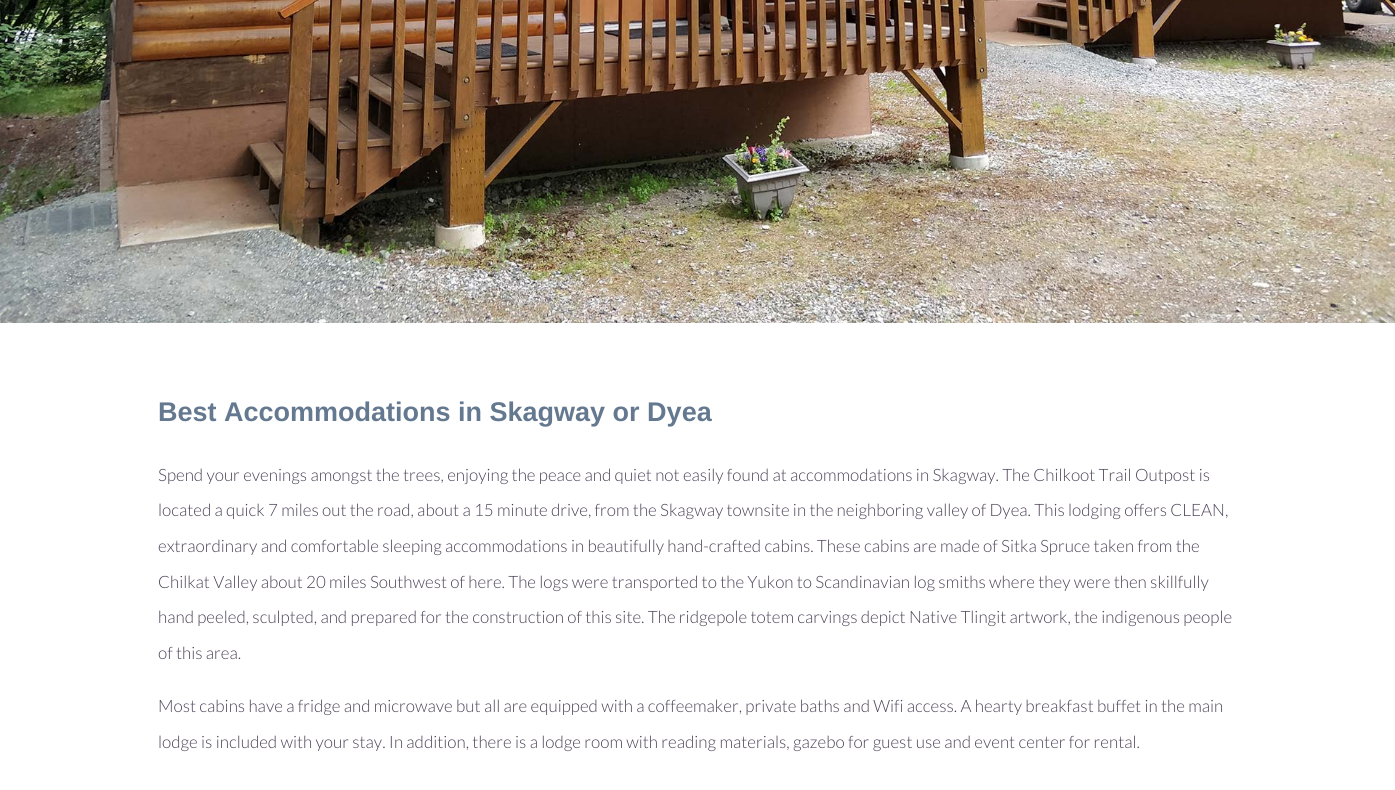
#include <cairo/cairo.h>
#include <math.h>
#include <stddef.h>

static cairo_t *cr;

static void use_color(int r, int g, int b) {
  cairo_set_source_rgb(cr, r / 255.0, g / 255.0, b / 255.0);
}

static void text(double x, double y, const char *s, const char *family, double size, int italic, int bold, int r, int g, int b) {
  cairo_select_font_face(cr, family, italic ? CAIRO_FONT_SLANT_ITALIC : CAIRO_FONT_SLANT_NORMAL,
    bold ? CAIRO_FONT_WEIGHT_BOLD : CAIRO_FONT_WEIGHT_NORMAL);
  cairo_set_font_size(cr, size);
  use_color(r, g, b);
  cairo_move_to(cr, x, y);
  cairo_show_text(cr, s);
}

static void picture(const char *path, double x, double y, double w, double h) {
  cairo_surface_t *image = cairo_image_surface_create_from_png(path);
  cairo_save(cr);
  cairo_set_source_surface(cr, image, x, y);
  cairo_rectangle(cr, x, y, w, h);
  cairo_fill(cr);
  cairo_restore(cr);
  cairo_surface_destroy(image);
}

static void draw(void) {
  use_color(255, 255, 255);
  cairo_paint(cr);
  picture("img_01.png", 0, 0, 1395, 323);
  text(158, 421, "Best Accommodations in Skagway or Dyea", "Liberation Sans", 27, 0, 1, 100, 121, 144);
  text(158, 481, "Spend your evenings amongst the trees, enjoying the peace and quiet not easily found at accommodations in Skagway. The Chilkoot Trail Outpost is", "Lato Light", 17, 0, 0, 77, 67, 88);
  text(158, 516, "located a quick 7 miles out the road, about a 15 minute drive, from the Skagway townsite in the neighboring valley of Dyea. This lodging offers CLEAN,", "Lato Light", 17, 0, 0, 77, 67, 88);
  text(158, 552, "extraordinary and comfortable sleeping accommodations in beautifully hand-crafted cabins. These cabins are made of Sitka Spruce taken from the", "Lato Light", 17, 0, 0, 77, 67, 88);
  text(158, 588, "Chilkat Valley about 20 miles Southwest of here. The logs were transported to the Yukon to Scandinavian log smiths where they were then skillfully", "Lato Light", 17, 0, 0, 77, 67, 88);
  text(158, 623, "hand peeled, sculpted, and prepared for the construction of this site. The ridgepole totem carvings depict Native Tlingit artwork, the indigenous people", "Lato Light", 17, 0, 0, 77, 67, 88);
  text(158, 659, "of this area.", "Lato Light", 17, 0, 0, 77, 67, 88);
  text(158, 712, "Most cabins have a fridge and microwave but all are equipped with a coffeemaker, private baths and Wifi access. A hearty breakfast buffet in the main", "Lato Light", 17, 0, 0, 77, 67, 88);
  text(158, 748, "lodge is included with your stay. In addition, there is a lodge room with reading materials, gazebo for guest use and event center for rental.", "Lato Light", 17, 0, 0, 77, 67, 88);
}

int main(void) {
  cairo_surface_t *surface = cairo_image_surface_create(CAIRO_FORMAT_RGB24, 1395, 790);
  cr = cairo_create(surface);
  cairo_font_options_t *options = cairo_font_options_create();
  cairo_font_options_set_hint_metrics(options, CAIRO_HINT_METRICS_OFF);
  cairo_font_options_set_hint_style(options, CAIRO_HINT_STYLE_NONE);
  cairo_set_font_options(cr, options);
  cairo_set_miter_limit(cr, 4);
  draw();
  cairo_surface_write_to_png(surface, "out.png");
  cairo_font_options_destroy(options);
  cairo_destroy(cr);
  cairo_surface_destroy(surface);
  return 0;
}
